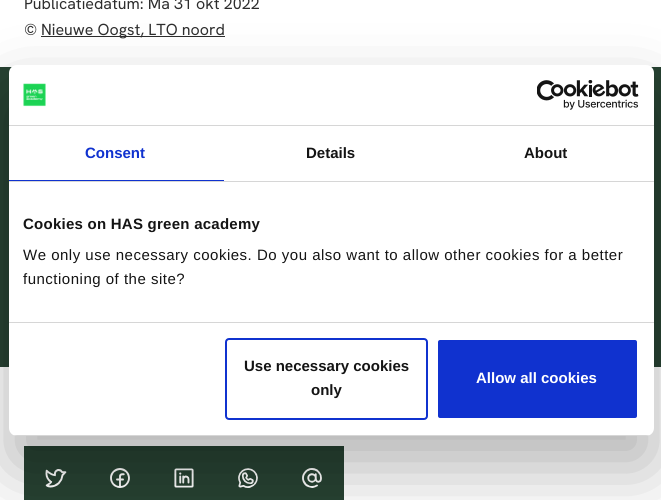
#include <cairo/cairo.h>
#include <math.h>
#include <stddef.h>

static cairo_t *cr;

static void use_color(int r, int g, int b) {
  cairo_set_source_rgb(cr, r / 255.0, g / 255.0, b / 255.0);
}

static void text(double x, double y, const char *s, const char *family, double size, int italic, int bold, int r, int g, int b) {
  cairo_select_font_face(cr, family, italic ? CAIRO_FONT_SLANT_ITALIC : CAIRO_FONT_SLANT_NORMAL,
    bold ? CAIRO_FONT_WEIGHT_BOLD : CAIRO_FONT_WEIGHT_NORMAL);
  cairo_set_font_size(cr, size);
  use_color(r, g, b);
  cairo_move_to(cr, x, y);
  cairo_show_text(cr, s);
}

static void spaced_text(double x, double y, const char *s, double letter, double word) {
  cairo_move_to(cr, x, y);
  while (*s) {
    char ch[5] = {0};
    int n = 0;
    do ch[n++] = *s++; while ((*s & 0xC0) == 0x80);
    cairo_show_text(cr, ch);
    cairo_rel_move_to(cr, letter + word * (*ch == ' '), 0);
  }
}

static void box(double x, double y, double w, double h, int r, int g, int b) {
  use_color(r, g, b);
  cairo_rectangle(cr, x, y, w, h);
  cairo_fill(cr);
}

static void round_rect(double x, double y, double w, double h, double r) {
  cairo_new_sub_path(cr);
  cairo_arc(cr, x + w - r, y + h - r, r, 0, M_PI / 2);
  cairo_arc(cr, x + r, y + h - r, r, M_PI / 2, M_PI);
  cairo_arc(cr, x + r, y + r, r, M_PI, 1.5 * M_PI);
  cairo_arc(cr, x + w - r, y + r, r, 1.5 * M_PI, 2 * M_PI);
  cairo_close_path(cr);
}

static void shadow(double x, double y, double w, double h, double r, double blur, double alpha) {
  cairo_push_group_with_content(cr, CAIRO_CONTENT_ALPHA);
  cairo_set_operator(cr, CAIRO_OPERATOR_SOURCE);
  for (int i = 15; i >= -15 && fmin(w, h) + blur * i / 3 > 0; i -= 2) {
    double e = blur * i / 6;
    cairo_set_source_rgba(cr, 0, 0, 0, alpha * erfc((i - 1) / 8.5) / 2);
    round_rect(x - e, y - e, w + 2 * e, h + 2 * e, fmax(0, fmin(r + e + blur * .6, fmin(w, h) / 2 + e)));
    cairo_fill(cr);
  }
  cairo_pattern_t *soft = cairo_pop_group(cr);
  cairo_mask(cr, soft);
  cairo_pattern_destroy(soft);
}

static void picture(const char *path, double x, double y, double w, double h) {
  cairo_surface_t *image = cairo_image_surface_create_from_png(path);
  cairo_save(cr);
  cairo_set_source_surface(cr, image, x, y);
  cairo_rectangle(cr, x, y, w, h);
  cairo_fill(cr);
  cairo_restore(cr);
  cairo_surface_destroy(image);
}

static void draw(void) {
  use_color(255, 255, 255);
  cairo_paint(cr);
  box(41, 36, 184, 1, 45, 45, 45);
  box(0, 67, 661, 300, 39, 66, 50);
  box(24, 446, 320, 54, 39, 66, 50);
  picture("img_01.png", 45, 469, 22, 19);
  picture("img_02.png", 110, 468, 20, 20);
  picture("img_03.png", 174, 468, 20, 20);
  picture("img_04.png", 238, 468, 20, 20);
  picture("img_05.png", 302, 468, 20, 20);
  use_color(0, 0, 0);
  shadow(9, 97, 645, 371, 8, 34, 0.3);
  use_color(255, 255, 255);
  round_rect(9, 65, 645, 371, 8);
  cairo_fill(cr);
  box(9, 125, 645, 1, 214, 214, 214);
  picture("img_06.png", 23, 83, 23, 24);
  picture("img_07.png", 537, 80, 102, 30);
  box(9, 181, 645, 1, 214, 214, 214);
  box(9, 180, 215, 1, 16, 50, 207);
  box(9, 322, 645, 1, 214, 214, 214);
  cairo_save(cr);
  round_rect(9, 65, 645, 371, 8);
  cairo_clip(cr);
  box(9, 435, 645, 1, 214, 214, 214);
  cairo_restore(cr);
  round_rect(226, 339, 201, 80, 3);
  use_color(16, 50, 207);
  cairo_stroke(cr);
  round_rect(437, 339, 201, 80, 3);
  cairo_fill_preserve(cr);
  use_color(255, 255, 255);
  cairo_stroke(cr);
  text(24, 9, "Publicatiedatum: Ma 31 okt 2022", "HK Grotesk", 16, 0, 0, 45, 45, 45);
  text(24, 35, "©", "HK Grotesk", 16, 0, 0, 45, 45, 45);
  text(41, 35, "Nieuwe Oogst, LTO noord", "HK Grotesk", 16, 0, 0, 45, 45, 45);
  text(85, 158, "Consent", "Liberation Sans", 15, 0, 1, 16, 50, 207);
  text(306, 158, "Details", "Liberation Sans", 15, 0, 1, 20, 20, 20);
  text(524, 158, "About", "Liberation Sans", 15, 0, 1, 20, 20, 20);
  spaced_text(23, 229, "Cookies on HAS green academy", 0.25, 0);
  cairo_select_font_face(cr, "Liberation Sans", CAIRO_FONT_SLANT_NORMAL, CAIRO_FONT_WEIGHT_NORMAL);
  spaced_text(23, 260, "We only use necessary cookies. Do you also want to allow other cookies for a better", 0.5, 0);
  spaced_text(23, 284, "functioning of the site?", 0.5, 0);
  text(244, 371, "Use necessary cookies", "Liberation Sans", 15, 0, 1, 20, 20, 20);
  text(311, 395, "only", "Liberation Sans", 15, 0, 1, 20, 20, 20);
  text(476, 383, "Allow all cookies", "Liberation Sans", 15, 0, 1, 255, 255, 255);
}

int main(void) {
  cairo_surface_t *surface = cairo_image_surface_create(CAIRO_FORMAT_RGB24, 661, 500);
  cr = cairo_create(surface);
  cairo_font_options_t *options = cairo_font_options_create();
  cairo_font_options_set_hint_metrics(options, CAIRO_HINT_METRICS_OFF);
  cairo_font_options_set_hint_style(options, CAIRO_HINT_STYLE_NONE);
  cairo_set_font_options(cr, options);
  cairo_set_miter_limit(cr, 4);
  draw();
  cairo_surface_write_to_png(surface, "out.png");
  cairo_font_options_destroy(options);
  cairo_destroy(cr);
  cairo_surface_destroy(surface);
  return 0;
}
